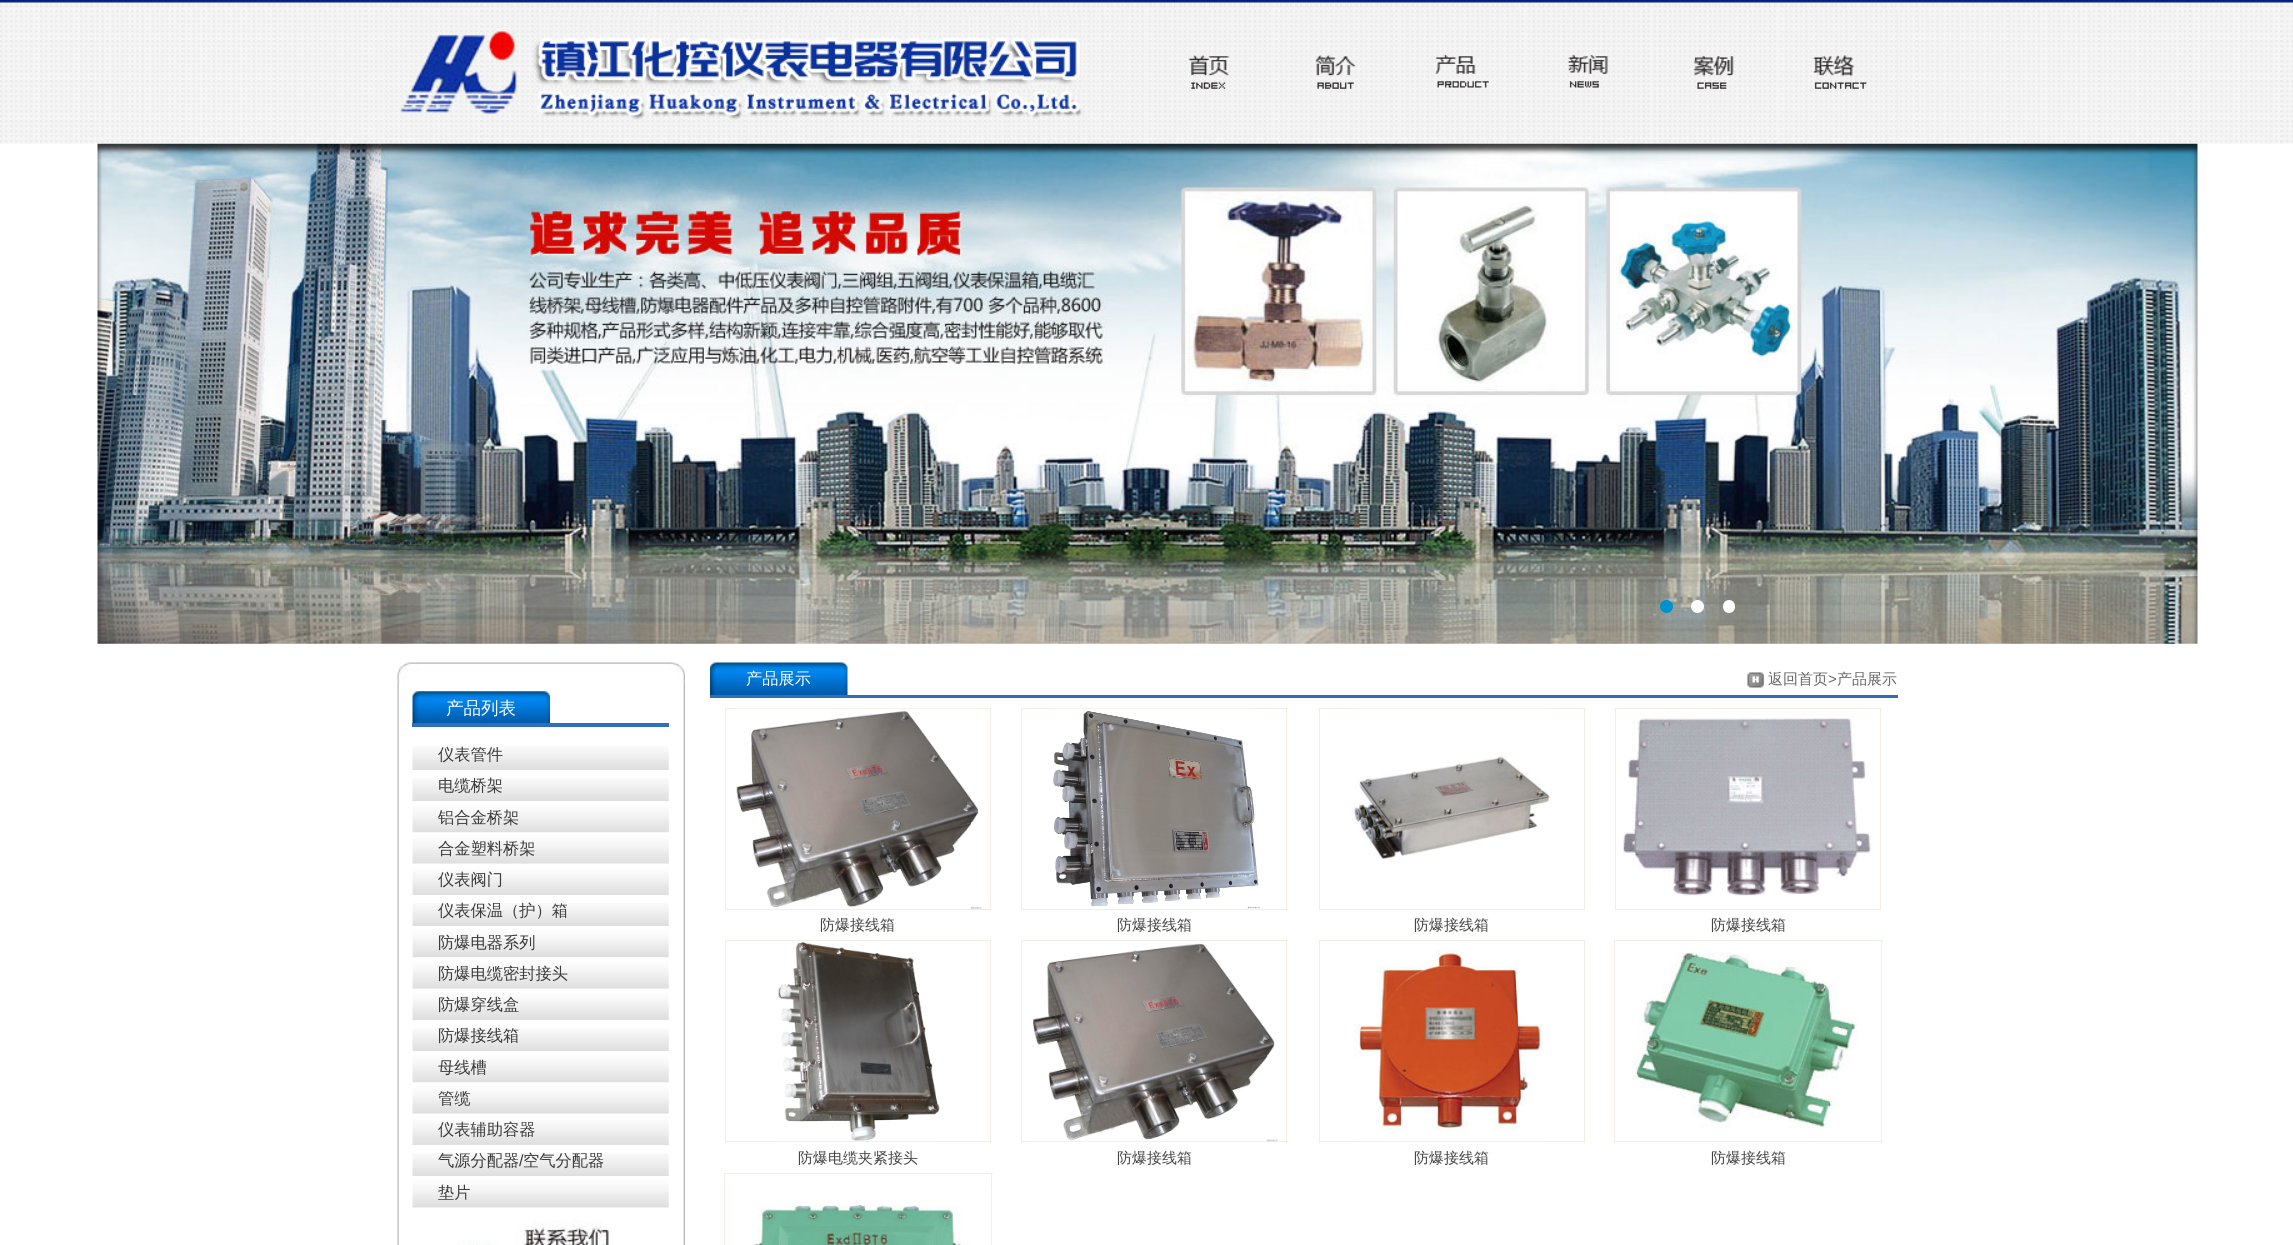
#include <cairo/cairo.h>
#include <math.h>
#include <stddef.h>

static cairo_t *cr;

static void use_color(int r, int g, int b) {
  cairo_set_source_rgb(cr, r / 255.0, g / 255.0, b / 255.0);
}

static void text(double x, double y, const char *s, const char *family, double size, int italic, int bold, int r, int g, int b) {
  cairo_select_font_face(cr, family, italic ? CAIRO_FONT_SLANT_ITALIC : CAIRO_FONT_SLANT_NORMAL,
    bold ? CAIRO_FONT_WEIGHT_BOLD : CAIRO_FONT_WEIGHT_NORMAL);
  cairo_set_font_size(cr, size);
  use_color(r, g, b);
  cairo_move_to(cr, x, y);
  cairo_show_text(cr, s);
}

static void box(double x, double y, double w, double h, int r, int g, int b) {
  use_color(r, g, b);
  cairo_rectangle(cr, x, y, w, h);
  cairo_fill(cr);
}

static void round_rect(double x, double y, double w, double h, double r) {
  cairo_new_sub_path(cr);
  cairo_arc(cr, x + w - r, y + h - r, r, 0, M_PI / 2);
  cairo_arc(cr, x + r, y + h - r, r, M_PI / 2, M_PI);
  cairo_arc(cr, x + r, y + r, r, M_PI, 1.5 * M_PI);
  cairo_arc(cr, x + w - r, y + r, r, 1.5 * M_PI, 2 * M_PI);
  cairo_close_path(cr);
}

static void picture(const char *path, double x, double y, double w, double h) {
  cairo_surface_t *image = cairo_image_surface_create_from_png(path);
  cairo_save(cr);
  cairo_set_source_surface(cr, image, x, y);
  cairo_rectangle(cr, x, y, w, h);
  cairo_fill(cr);
  cairo_restore(cr);
  cairo_surface_destroy(image);
}

static void draw(void) {
  use_color(255, 255, 255);
  cairo_paint(cr);
  picture("img_01.png", 0, 0, 2293, 144);
  picture("img_02.png", 390, 3, 756, 141);
  picture("img_03.png", 1146, 2, 127, 142);
  picture("img_04.png", 1273, 3, 125, 141);
  picture("img_05.png", 1399, 3, 125, 141);
  picture("img_06.png", 1525, 3, 124, 141);
  picture("img_07.png", 1652, 3, 125, 141);
  picture("img_08.png", 1779, 3, 122, 141);
  picture("img_09.png", 97, 143, 2101, 501);
  use_color(0, 146, 206);
  cairo_arc(cr, 1666.5, 606.5, 6.5, 0, 2 * M_PI);
  cairo_fill(cr);
  use_color(255, 255, 255);
  cairo_arc(cr, 1697.5, 606.5, 6.5, 0, 2 * M_PI);
  cairo_fill(cr);
  round_rect(1723, 600, 12, 13, 6);
  cairo_fill(cr);
  picture("img_11.png", 397, 681, 288, 564);
  picture("img_10.png", 397, 662, 288, 20);
  picture("img_12.png", 412, 691, 138, 32);
  box(412, 723, 257, 4, 47, 110, 187);
  picture("img_13.png", 412, 746, 257, 24);
  picture("img_14.png", 412, 778, 257, 24);
  picture("img_15.png", 412, 801, 257, 32);
  picture("img_16.png", 412, 832, 257, 32);
  picture("img_17.png", 412, 863, 257, 32);
  picture("img_14.png", 412, 903, 257, 24);
  picture("img_15.png", 412, 926, 257, 32);
  picture("img_16.png", 412, 957, 257, 32);
  picture("img_17.png", 412, 988, 257, 32);
  picture("img_14.png", 412, 1028, 257, 24);
  picture("img_15.png", 412, 1051, 257, 32);
  picture("img_16.png", 412, 1082, 257, 32);
  picture("img_17.png", 412, 1113, 257, 32);
  picture("img_14.png", 412, 1153, 257, 24);
  picture("img_15.png", 412, 1176, 257, 32);
  picture("img_18.png", 456, 1220, 156, 25);
  picture("img_19.png", 710, 662, 138, 33);
  picture("img_20.png", 1747, 672, 17, 16);
  box(710, 695, 1188, 3, 47, 110, 187);
  box(725, 708, 266, 1, 242, 238, 227);
  box(990, 708, 1, 202, 242, 238, 227);
  box(725, 909, 266, 1, 242, 238, 227);
  box(725, 708, 1, 202, 242, 238, 227);
  picture("img_21.png", 735, 708, 247, 201);
  box(1021, 708, 267, 1, 242, 238, 227);
  box(1286, 708, 1, 202, 242, 238, 227);
  box(1021, 909, 267, 1, 242, 238, 227);
  box(1021, 708, 1, 202, 242, 238, 227);
  picture("img_22.png", 1050, 708, 210, 201);
  box(1319, 708, 266, 1, 242, 238, 227);
  box(1584, 708, 1, 202, 242, 238, 227);
  box(1319, 909, 266, 1, 242, 238, 227);
  box(1319, 708, 1, 202, 242, 238, 227);
  picture("img_23.png", 1351, 708, 200, 152);
  box(1615, 708, 266, 1, 242, 238, 227);
  box(1880, 708, 1, 202, 242, 238, 227);
  box(1615, 909, 266, 1, 242, 238, 227);
  box(1615, 708, 1, 202, 242, 238, 227);
  picture("img_24.png", 1623, 718, 248, 178);
  box(725, 940, 266, 1, 242, 238, 227);
  box(990, 940, 1, 203, 242, 238, 227);
  box(725, 1141, 266, 1, 242, 238, 227);
  box(725, 940, 1, 203, 242, 238, 227);
  picture("img_25.png", 776, 942, 164, 200);
  box(1021, 940, 267, 1, 242, 238, 227);
  box(1286, 940, 1, 203, 242, 238, 227);
  box(1021, 1141, 267, 1, 242, 238, 227);
  box(1021, 940, 1, 203, 242, 238, 227);
  picture("img_26.png", 1031, 943, 247, 199);
  box(1319, 940, 266, 1, 242, 238, 227);
  box(1584, 940, 1, 203, 242, 238, 227);
  box(1319, 1141, 266, 1, 242, 238, 227);
  box(1319, 940, 1, 203, 242, 238, 227);
  picture("img_27.png", 1354, 949, 195, 193);
  box(1614, 940, 269, 1, 242, 238, 227);
  box(1881, 940, 1, 203, 242, 238, 227);
  box(1614, 1141, 269, 1, 242, 238, 227);
  box(1614, 940, 1, 203, 242, 238, 227);
  picture("img_28.png", 1632, 943, 250, 197);
  box(724, 1173, 269, 1, 242, 238, 227);
  box(991, 1173, 1, 72, 242, 238, 227);
  box(724, 1173, 1, 72, 242, 238, 227);
  picture("img_29.png", 754, 1188, 238, 57);
  text(446, 714, "产品列表", "WenQuanYi Zen Hei Medium", 17.5, 0, 0, 255, 255, 255);
  text(438, 760, "仪表管件", "WenQuanYi Zen Hei Medium", 16.25, 0, 0, 59, 59, 59);
  text(438, 791, "电缆桥架", "WenQuanYi Zen Hei Medium", 16.25, 0, 0, 59, 59, 59);
  text(438, 823, "铝合金桥架", "WenQuanYi Zen Hei Medium", 16.25, 0, 0, 59, 59, 59);
  text(438, 854, "合金塑料桥架", "WenQuanYi Zen Hei Medium", 16.25, 0, 0, 59, 59, 59);
  text(438, 885, "仪表阀门", "WenQuanYi Zen Hei Medium", 16.25, 0, 0, 59, 59, 59);
  text(438, 916, "仪表保温（护）箱", "WenQuanYi Zen Hei Medium", 16.25, 0, 0, 59, 59, 59);
  text(438, 948, "防爆电器系列", "WenQuanYi Zen Hei Medium", 16.25, 0, 0, 59, 59, 59);
  text(438, 979, "防爆电缆密封接头", "WenQuanYi Zen Hei Medium", 16.25, 0, 0, 59, 59, 59);
  text(438, 1010, "防爆穿线盒", "WenQuanYi Zen Hei Medium", 16.25, 0, 0, 59, 59, 59);
  text(438, 1041, "防爆接线箱", "WenQuanYi Zen Hei Medium", 16.25, 0, 0, 59, 59, 59);
  text(438, 1073, "母线槽", "WenQuanYi Zen Hei Medium", 16.25, 0, 0, 59, 59, 59);
  text(438, 1104, "管缆", "WenQuanYi Zen Hei Medium", 16.25, 0, 0, 59, 59, 59);
  text(438, 1135, "仪表辅助容器", "WenQuanYi Zen Hei Medium", 16.25, 0, 0, 59, 59, 59);
  text(438, 1166, "气源分配器", "WenQuanYi Zen Hei Medium", 16.25, 0, 0, 59, 59, 59);
  text(519, 1166, "/", "Liberation Sans", 16.25, 0, 0, 59, 59, 59);
  text(523, 1166, "空气分配器", "WenQuanYi Zen Hei Medium", 16.25, 0, 0, 59, 59, 59);
  text(438, 1198, "垫片", "WenQuanYi Zen Hei Medium", 16.25, 0, 0, 59, 59, 59);
  text(746, 684, "产品展示", "WenQuanYi Zen Hei Medium", 16.25, 0, 0, 255, 255, 255);
  text(1768, 684, "返回首页", "WenQuanYi Zen Hei Medium", 15, 0, 0, 102, 102, 102);
  text(1828, 684, ">", "Liberation Sans", 15, 0, 0, 102, 102, 102);
  text(1837, 684, "产品展示", "WenQuanYi Zen Hei Medium", 15, 0, 0, 102, 102, 102);
  text(820, 930, "防爆接线箱", "WenQuanYi Zen Hei Medium", 15, 0, 0, 69, 69, 69);
  text(1117, 930, "防爆接线箱", "WenQuanYi Zen Hei Medium", 15, 0, 0, 69, 69, 69);
  text(1414, 930, "防爆接线箱", "WenQuanYi Zen Hei Medium", 15, 0, 0, 69, 69, 69);
  text(1711, 930, "防爆接线箱", "WenQuanYi Zen Hei Medium", 15, 0, 0, 69, 69, 69);
  text(798, 1163, "防爆电缆夹紧接头", "WenQuanYi Zen Hei Medium", 15, 0, 0, 69, 69, 69);
  text(1117, 1163, "防爆接线箱", "WenQuanYi Zen Hei Medium", 15, 0, 0, 69, 69, 69);
  text(1414, 1163, "防爆接线箱", "WenQuanYi Zen Hei Medium", 15, 0, 0, 69, 69, 69);
  text(1711, 1163, "防爆接线箱", "WenQuanYi Zen Hei Medium", 15, 0, 0, 69, 69, 69);
}

int main(void) {
  cairo_surface_t *surface = cairo_image_surface_create(CAIRO_FORMAT_RGB24, 2293, 1245);
  cr = cairo_create(surface);
  cairo_font_options_t *options = cairo_font_options_create();
  cairo_font_options_set_hint_metrics(options, CAIRO_HINT_METRICS_OFF);
  cairo_font_options_set_hint_style(options, CAIRO_HINT_STYLE_NONE);
  cairo_set_font_options(cr, options);
  cairo_set_miter_limit(cr, 4);
  draw();
  cairo_surface_write_to_png(surface, "out.png");
  cairo_font_options_destroy(options);
  cairo_destroy(cr);
  cairo_surface_destroy(surface);
  return 0;
}
